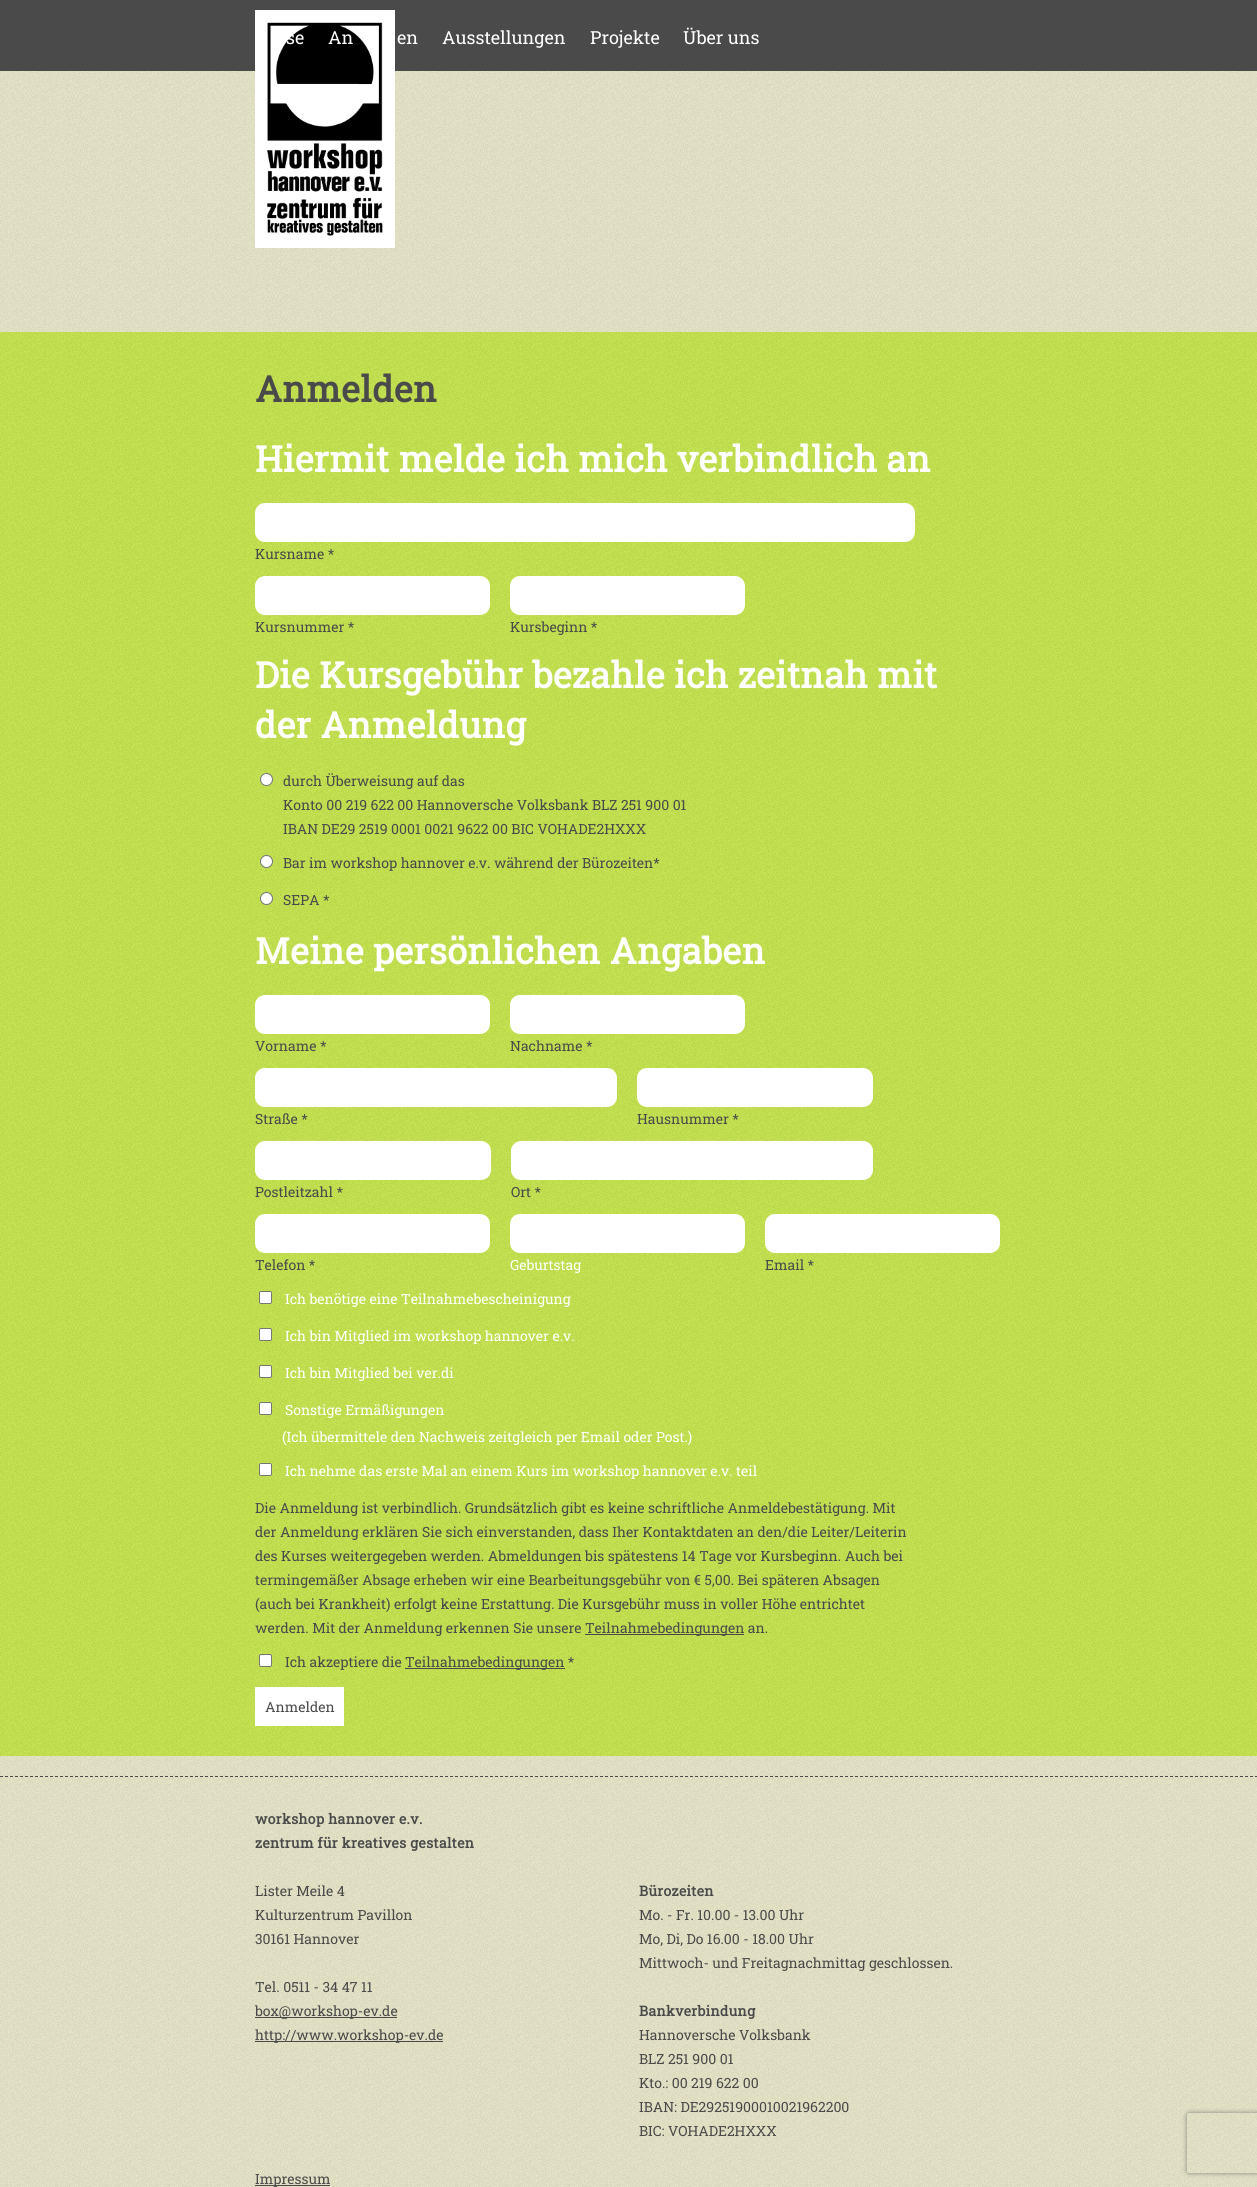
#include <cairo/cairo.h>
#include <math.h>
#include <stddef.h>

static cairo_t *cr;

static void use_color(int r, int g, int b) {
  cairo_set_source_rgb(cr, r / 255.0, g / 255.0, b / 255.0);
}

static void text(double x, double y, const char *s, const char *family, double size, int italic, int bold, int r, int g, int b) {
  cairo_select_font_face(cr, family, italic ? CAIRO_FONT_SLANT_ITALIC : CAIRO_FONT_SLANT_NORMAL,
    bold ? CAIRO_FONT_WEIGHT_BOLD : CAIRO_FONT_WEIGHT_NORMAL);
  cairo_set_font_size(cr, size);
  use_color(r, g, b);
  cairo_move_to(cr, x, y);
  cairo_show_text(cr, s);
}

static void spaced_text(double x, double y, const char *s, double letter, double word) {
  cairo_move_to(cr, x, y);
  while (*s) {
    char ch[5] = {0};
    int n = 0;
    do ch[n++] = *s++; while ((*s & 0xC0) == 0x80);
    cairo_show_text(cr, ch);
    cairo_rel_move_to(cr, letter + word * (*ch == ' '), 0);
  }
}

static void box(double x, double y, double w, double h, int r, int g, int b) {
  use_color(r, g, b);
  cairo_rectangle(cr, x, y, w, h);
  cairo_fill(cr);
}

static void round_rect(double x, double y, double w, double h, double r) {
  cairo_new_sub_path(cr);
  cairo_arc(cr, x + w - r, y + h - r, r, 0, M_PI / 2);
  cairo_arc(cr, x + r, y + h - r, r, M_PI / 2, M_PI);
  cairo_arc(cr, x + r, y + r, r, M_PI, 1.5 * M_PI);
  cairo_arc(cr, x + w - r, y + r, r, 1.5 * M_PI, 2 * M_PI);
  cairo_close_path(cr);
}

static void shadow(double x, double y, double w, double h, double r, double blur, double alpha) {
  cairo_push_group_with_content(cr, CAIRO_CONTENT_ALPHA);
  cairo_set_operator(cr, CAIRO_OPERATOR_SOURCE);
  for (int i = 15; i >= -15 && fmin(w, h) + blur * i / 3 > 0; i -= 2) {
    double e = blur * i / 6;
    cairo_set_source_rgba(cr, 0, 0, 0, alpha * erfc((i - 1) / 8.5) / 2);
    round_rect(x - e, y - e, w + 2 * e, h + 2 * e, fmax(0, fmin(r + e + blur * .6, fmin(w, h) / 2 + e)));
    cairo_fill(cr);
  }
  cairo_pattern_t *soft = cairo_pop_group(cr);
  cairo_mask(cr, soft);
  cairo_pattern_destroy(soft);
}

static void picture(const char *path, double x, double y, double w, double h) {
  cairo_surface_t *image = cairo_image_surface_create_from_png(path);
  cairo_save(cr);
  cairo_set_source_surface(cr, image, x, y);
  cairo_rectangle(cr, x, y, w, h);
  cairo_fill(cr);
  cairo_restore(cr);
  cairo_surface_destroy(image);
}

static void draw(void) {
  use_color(255, 253, 218);
  cairo_paint(cr);
  picture("img_01.png", 0, 71, 1257, 2116);
  box(0, 0, 1257, 71, 74, 74, 74);
  box(255, 10, 140, 238, 255, 255, 255);
  picture("img_02.png", 267, 22, 116, 214);
  box(0, 332, 1257, 1424, 214, 252, 63);
  picture("img_03.png", 0, 332, 1257, 1424);
  use_color(255, 255, 255);
  round_rect(255, 503, 660, 39, 10);
  cairo_fill(cr);
  round_rect(255, 576, 235, 39, 10);
  cairo_fill(cr);
  round_rect(510, 576, 235, 39, 10);
  cairo_fill(cr);
  cairo_arc(cr, 266.5, 779.5, 6, 0, 2 * M_PI);
  cairo_fill_preserve(cr);
  use_color(118, 118, 118);
  cairo_set_line_width(cr, 1);
  cairo_stroke(cr);
  use_color(255, 255, 255);
  cairo_arc(cr, 266.5, 861.5, 6, 0, 2 * M_PI);
  cairo_fill_preserve(cr);
  use_color(118, 118, 118);
  cairo_stroke(cr);
  use_color(255, 255, 255);
  cairo_arc(cr, 266.5, 898.5, 6, 0, 2 * M_PI);
  cairo_fill_preserve(cr);
  use_color(118, 118, 118);
  cairo_stroke(cr);
  use_color(255, 255, 255);
  round_rect(255, 995, 235, 39, 10);
  cairo_fill(cr);
  round_rect(510, 995, 235, 39, 10);
  cairo_fill(cr);
  round_rect(255, 1068, 362, 39, 10);
  cairo_fill(cr);
  round_rect(637, 1068, 236, 39, 10);
  cairo_fill(cr);
  round_rect(255, 1141, 236, 39, 10);
  cairo_fill(cr);
  round_rect(511, 1141, 362, 39, 10);
  cairo_fill(cr);
  round_rect(255, 1214, 235, 39, 10);
  cairo_fill(cr);
  round_rect(510, 1214, 235, 39, 10);
  cairo_fill(cr);
  round_rect(765, 1214, 235, 39, 10);
  cairo_fill(cr);
  round_rect(259.5, 1291.5, 12, 12, 1.5);
  cairo_fill_preserve(cr);
  use_color(118, 118, 118);
  cairo_stroke(cr);
  use_color(255, 255, 255);
  round_rect(259.5, 1328.5, 12, 12, 1.5);
  cairo_fill_preserve(cr);
  use_color(118, 118, 118);
  cairo_stroke(cr);
  use_color(255, 255, 255);
  round_rect(259.5, 1365.5, 12, 12, 1.5);
  cairo_fill_preserve(cr);
  use_color(118, 118, 118);
  cairo_stroke(cr);
  use_color(255, 255, 255);
  round_rect(259.5, 1402.5, 12, 12, 1.5);
  cairo_fill_preserve(cr);
  use_color(118, 118, 118);
  cairo_stroke(cr);
  use_color(255, 255, 255);
  round_rect(259.5, 1463.5, 12, 12, 1.5);
  cairo_fill_preserve(cr);
  use_color(118, 118, 118);
  cairo_stroke(cr);
  box(585, 1634, 159, 1, 74, 74, 74);
  use_color(255, 255, 255);
  round_rect(259.5, 1654.5, 12, 12, 1.5);
  cairo_fill_preserve(cr);
  use_color(118, 118, 118);
  cairo_stroke(cr);
  box(405, 1668, 160, 1, 74, 74, 74);
  box(255, 1687, 89, 39, 255, 255, 255);
  cairo_new_path(cr);
  cairo_move_to(cr, 0, 1776.5);
  cairo_line_to(cr, 1257, 1776.5);
  use_color(74, 74, 74);
  cairo_set_dash(cr, (double[]){3, 2}, 2, 0);
  cairo_stroke(cr);
  box(255, 2017, 142, 1, 74, 74, 74);
  box(255, 2041, 188, 1, 74, 74, 74);
  box(255, 2185, 75, 1, 74, 74, 74);
  cairo_save(cr);
  cairo_set_fill_rule(cr, CAIRO_FILL_RULE_EVEN_ODD);
  cairo_new_path(cr);
  cairo_move_to(cr, 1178, 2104);
  cairo_line_to(cr, 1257, 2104);
  cairo_line_to(cr, 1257, 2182);
  cairo_line_to(cr, 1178, 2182);
  cairo_close_path(cr);
  cairo_move_to(cr, 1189, 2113);
  cairo_line_to(cr, 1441, 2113);
  cairo_curve_to(cr, 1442, 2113, 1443, 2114, 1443, 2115);
  cairo_line_to(cr, 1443, 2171);
  cairo_curve_to(cr, 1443, 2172, 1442, 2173, 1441, 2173);
  cairo_line_to(cr, 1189, 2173);
  cairo_curve_to(cr, 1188, 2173, 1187, 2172, 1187, 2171);
  cairo_line_to(cr, 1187, 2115);
  cairo_curve_to(cr, 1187, 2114, 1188, 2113, 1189, 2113);
  cairo_close_path(cr);
  cairo_clip(cr);
  use_color(128, 128, 128);
  shadow(1187, 2113, 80, 60, 2, 2.5, 1);
  cairo_restore(cr);
  text(286, 44, "se", "Roboto Slab", 18, 0, 0, 255, 255, 255);
  text(328, 44, "An", "Roboto Slab", 18, 0, 0, 255, 255, 255);
  text(397, 44, "en", "Roboto Slab", 18, 0, 0, 255, 255, 255);
  text(442, 44, "Ausstellungen", "Roboto Slab", 18, 0, 0, 255, 255, 255);
  text(590, 44, "Projekte", "Roboto Slab", 18, 0, 0, 255, 255, 255);
  text(683, 44, "Über uns", "Roboto Slab", 18, 0, 0, 255, 255, 255);
  cairo_select_font_face(cr, "Roboto Slab", CAIRO_FONT_SLANT_NORMAL, CAIRO_FONT_WEIGHT_BOLD);
  cairo_set_font_size(cr, 36);
  use_color(74, 74, 74);
  spaced_text(255, 402, "Anmelden", 0.35, 0);
  use_color(255, 255, 255);
  spaced_text(255, 472, "Hiermit melde ich mich verbindlich an", 0.35, 0);
  text(255, 559, "Kursname *", "Roboto Slab", 14, 0, 0, 74, 74, 74);
  text(255, 632, "Kursnummer *", "Roboto Slab", 14, 0, 0, 74, 74, 74);
  text(510, 632, "Kursbeginn *", "Roboto Slab", 14, 0, 0, 74, 74, 74);
  cairo_select_font_face(cr, "Roboto Slab", CAIRO_FONT_SLANT_NORMAL, CAIRO_FONT_WEIGHT_BOLD);
  cairo_set_font_size(cr, 36);
  use_color(255, 255, 255);
  spaced_text(255, 688, "Die Kursgebühr bezahle ich zeitnah mit", 0.35, 0);
  spaced_text(255, 738, "der Anmeldung", 0.35, 0);
  text(283, 786, "durch Überweisung auf das", "Roboto Slab", 14, 0, 0, 74, 74, 74);
  text(283, 810, "Konto 00 219 622 00 Hannoversche Volksbank BLZ 251 900 01", "Roboto Slab", 14, 0, 0, 74, 74, 74);
  text(283, 834, "IBAN DE29 2519 0001 0021 9622 00 BIC VOHADE2HXXX", "Roboto Slab", 14, 0, 0, 74, 74, 74);
  text(283, 868, "Bar im workshop hannover e.v. während der Bürozeiten*", "Roboto Slab", 14, 0, 0, 74, 74, 74);
  text(283, 905, "SEPA *", "Roboto Slab", 14, 0, 0, 74, 74, 74);
  cairo_select_font_face(cr, "Roboto Slab", CAIRO_FONT_SLANT_NORMAL, CAIRO_FONT_WEIGHT_BOLD);
  cairo_set_font_size(cr, 36);
  use_color(255, 255, 255);
  spaced_text(255, 964, "Meine persönlichen Angaben", 0.35, 0);
  text(255, 1051, "Vorname *", "Roboto Slab", 14, 0, 0, 74, 74, 74);
  text(510, 1051, "Nachname *", "Roboto Slab", 14, 0, 0, 74, 74, 74);
  text(255, 1124, "Straße *", "Roboto Slab", 14, 0, 0, 74, 74, 74);
  text(637, 1124, "Hausnummer *", "Roboto Slab", 14, 0, 0, 74, 74, 74);
  text(255, 1197, "Postleitzahl *", "Roboto Slab", 14, 0, 0, 74, 74, 74);
  text(511, 1197, "Ort *", "Roboto Slab", 14, 0, 0, 74, 74, 74);
  text(255, 1270, "Telefon *", "Roboto Slab", 14, 0, 0, 74, 74, 74);
  text(510, 1270, "Geburtstag", "Roboto Slab", 14, 0, 0, 255, 255, 255);
  text(765, 1270, "Email *", "Roboto Slab", 14, 0, 0, 74, 74, 74);
  text(285, 1304, "Ich benötige eine Teilnahmebescheinigung", "Roboto Slab", 14, 0, 0, 255, 255, 255);
  text(285, 1341, "Ich bin Mitglied im workshop hannover e.v.", "Roboto Slab", 14, 0, 0, 255, 255, 255);
  text(285, 1378, "Ich bin Mitglied bei ver.di", "Roboto Slab", 14, 0, 0, 255, 255, 255);
  text(285, 1415, "Sonstige Ermäßigungen", "Roboto Slab", 14, 0, 0, 255, 255, 255);
  text(282, 1442, "(Ich übermittele den Nachweis zeitgleich per Email oder Post.)", "Roboto Slab", 14, 0, 0, 255, 255, 255);
  text(285, 1476, "Ich nehme das erste Mal an einem Kurs im workshop hannover e.v. teil", "Roboto Slab", 14, 0, 0, 255, 255, 255);
  text(255, 1513, "Die Anmeldung ist verbindlich. Grundsätzlich gibt es keine schriftliche Anmeldebestätigung. Mit", "Roboto Slab", 14, 0, 0, 74, 74, 74);
  text(255, 1537, "der Anmeldung erklären Sie sich einverstanden, dass Iher Kontaktdaten an den/die Leiter/Leiterin", "Roboto Slab", 14, 0, 0, 74, 74, 74);
  text(255, 1561, "des Kurses weitergegeben werden. Abmeldungen bis spätestens 14 Tage vor Kursbeginn. Auch bei", "Roboto Slab", 14, 0, 0, 74, 74, 74);
  text(255, 1585, "termingemäßer Absage erheben wir eine Bearbeitungsgebühr von € 5,00. Bei späteren Absagen", "Roboto Slab", 14, 0, 0, 74, 74, 74);
  text(255, 1609, "(auch bei Krankheit) erfolgt keine Erstattung. Die Kursgebühr muss in voller Höhe entrichtet", "Roboto Slab", 14, 0, 0, 74, 74, 74);
  text(255, 1633, "werden. Mit der Anmeldung erkennen Sie unsere", "Roboto Slab", 14, 0, 0, 74, 74, 74);
  text(585, 1633, "Teilnahmebedingungen an.", "Roboto Slab", 14, 0, 0, 74, 74, 74);
  text(285, 1667, "Ich akzeptiere die", "Roboto Slab", 14, 0, 0, 74, 74, 74);
  text(405, 1667, "Teilnahmebedingungen *", "Roboto Slab", 14, 0, 0, 74, 74, 74);
  text(265, 1712, "Anmelden", "Roboto Slab", 14, 0, 0, 74, 74, 74);
  cairo_select_font_face(cr, "Roboto Slab", CAIRO_FONT_SLANT_NORMAL, CAIRO_FONT_WEIGHT_BOLD);
  spaced_text(255, 1824, "workshop hannover e.v.", 0.35, 0);
  spaced_text(255, 1848, "zentrum für kreatives gestalten", 0.35, 0);
  text(255, 1896, "Lister Meile 4", "Roboto Slab", 14, 0, 0, 74, 74, 74);
  text(255, 1920, "Kulturzentrum Pavillon", "Roboto Slab", 14, 0, 0, 74, 74, 74);
  text(255, 1944, "30161 Hannover", "Roboto Slab", 14, 0, 0, 74, 74, 74);
  text(255, 1992, "Tel. 0511 - 34 47 11", "Roboto Slab", 14, 0, 0, 74, 74, 74);
  text(255, 2016, "box@workshop-ev.de", "Roboto Slab", 14, 0, 0, 74, 74, 74);
  text(255, 2040, "http://www.workshop-ev.de", "Roboto Slab", 14, 0, 0, 74, 74, 74);
  cairo_select_font_face(cr, "Roboto Slab", CAIRO_FONT_SLANT_NORMAL, CAIRO_FONT_WEIGHT_BOLD);
  spaced_text(639, 1896, "Bürozeiten", 0.35, 0);
  text(639, 1920, "Mo. - Fr. 10.00 - 13.00 Uhr", "Roboto Slab", 14, 0, 0, 74, 74, 74);
  text(639, 1944, "Mo, Di, Do 16.00 - 18.00 Uhr", "Roboto Slab", 14, 0, 0, 74, 74, 74);
  text(639, 1968, "Mittwoch- und Freitagnachmittag geschlossen.", "Roboto Slab", 14, 0, 0, 74, 74, 74);
  cairo_select_font_face(cr, "Roboto Slab", CAIRO_FONT_SLANT_NORMAL, CAIRO_FONT_WEIGHT_BOLD);
  spaced_text(639, 2016, "Bankverbindung", 0.35, 0);
  text(639, 2040, "Hannoversche Volksbank", "Roboto Slab", 14, 0, 0, 74, 74, 74);
  text(639, 2064, "BLZ 251 900 01", "Roboto Slab", 14, 0, 0, 74, 74, 74);
  text(639, 2088, "Kto.: 00 219 622 00", "Roboto Slab", 14, 0, 0, 74, 74, 74);
  text(639, 2112, "IBAN: DE29251900010021962200", "Roboto Slab", 14, 0, 0, 74, 74, 74);
  text(639, 2136, "BIC: VOHADE2HXXX", "Roboto Slab", 14, 0, 0, 74, 74, 74);
  text(255, 2184, "Impressum", "Roboto Slab", 14, 0, 0, 74, 74, 74);
}

int main(void) {
  cairo_surface_t *surface = cairo_image_surface_create(CAIRO_FORMAT_RGB24, 1257, 2187);
  cr = cairo_create(surface);
  cairo_font_options_t *options = cairo_font_options_create();
  cairo_font_options_set_hint_metrics(options, CAIRO_HINT_METRICS_OFF);
  cairo_font_options_set_hint_style(options, CAIRO_HINT_STYLE_NONE);
  cairo_set_font_options(cr, options);
  cairo_set_miter_limit(cr, 4);
  draw();
  cairo_surface_write_to_png(surface, "out.png");
  cairo_font_options_destroy(options);
  cairo_destroy(cr);
  cairo_surface_destroy(surface);
  return 0;
}
